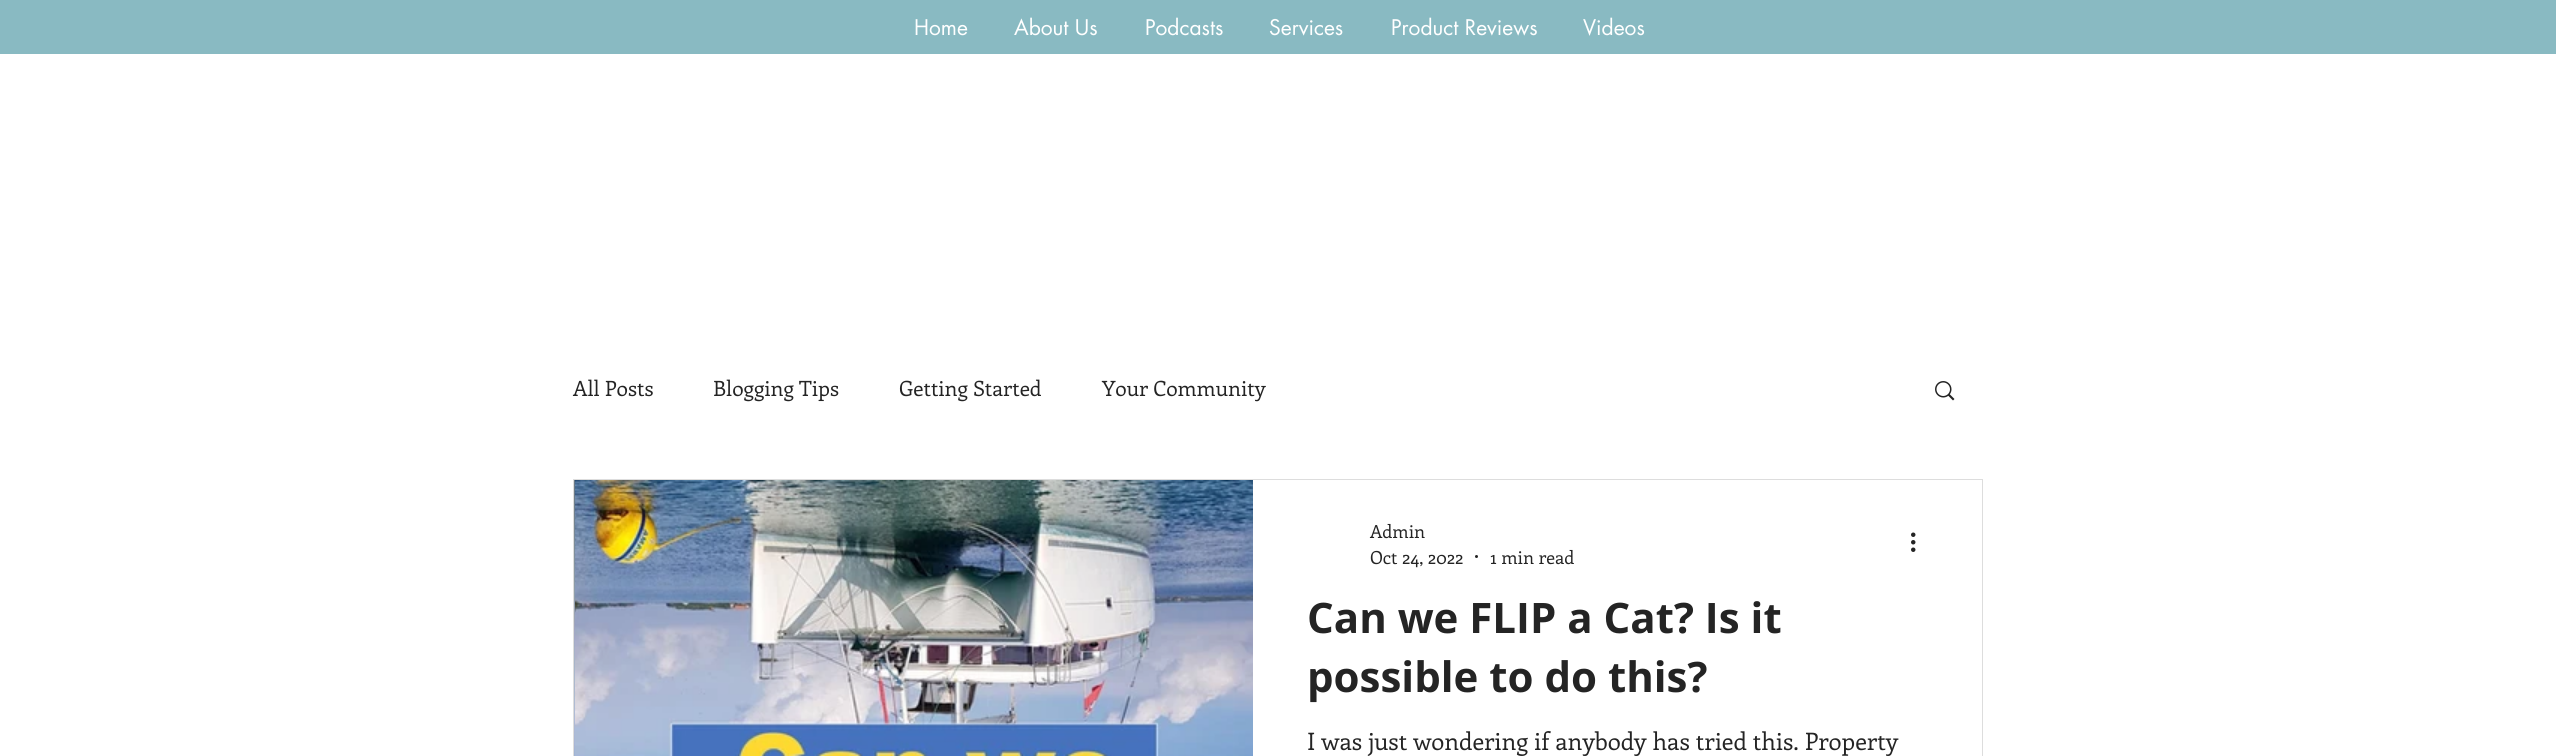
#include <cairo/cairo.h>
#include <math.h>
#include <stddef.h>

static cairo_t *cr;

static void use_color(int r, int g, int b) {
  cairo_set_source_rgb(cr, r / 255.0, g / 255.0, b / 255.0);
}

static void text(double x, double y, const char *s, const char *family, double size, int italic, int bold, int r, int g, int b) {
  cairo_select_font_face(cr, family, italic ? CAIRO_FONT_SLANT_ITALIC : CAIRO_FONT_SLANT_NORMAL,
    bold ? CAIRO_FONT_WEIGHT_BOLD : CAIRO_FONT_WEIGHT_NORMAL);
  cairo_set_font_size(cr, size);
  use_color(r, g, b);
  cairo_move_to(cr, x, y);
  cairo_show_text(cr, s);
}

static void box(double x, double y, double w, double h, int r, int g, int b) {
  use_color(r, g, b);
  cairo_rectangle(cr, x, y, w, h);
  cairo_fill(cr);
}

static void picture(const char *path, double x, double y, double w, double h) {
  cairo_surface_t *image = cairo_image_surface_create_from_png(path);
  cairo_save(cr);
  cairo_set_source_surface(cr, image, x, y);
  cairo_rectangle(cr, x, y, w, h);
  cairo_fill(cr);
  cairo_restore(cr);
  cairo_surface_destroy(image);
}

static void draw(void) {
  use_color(255, 255, 255);
  cairo_paint(cr);
  box(0, 0, 2556, 54, 137, 186, 194);
  picture("img_01.png", 1935, 381, 20, 20);
  cairo_rectangle(cr, 574, 480, 1408, 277);
  use_color(221, 221, 221);
  cairo_stroke(cr);
  picture("img_02.png", 574, 480, 1, 276);
  picture("img_03.png", 575, 480, 678, 276);
  box(1253, 480, 729, 276, 255, 255, 255);
  use_color(36, 36, 36);
  cairo_arc(cr, 1476.5, 556.5, 1.5, 0, 2 * M_PI);
  cairo_fill(cr);
  picture("img_04.png", 1911, 532, 5, 20);
  text(914, 35, "Home", "futura", 21, 0, 0, 255, 255, 255);
  text(1014, 35, "About Us", "futura", 21, 0, 0, 255, 255, 255);
  text(1145, 35, "Podcasts", "futura", 21, 0, 0, 255, 255, 255);
  text(1269, 35, "Services", "futura", 21, 0, 0, 255, 255, 255);
  text(1391, 35, "Product Reviews", "futura", 21, 0, 0, 255, 255, 255);
  text(1583, 35, "Videos", "futura", 21, 0, 0, 255, 255, 255);
  text(573, 396, "All Posts", "Enriqueta", 21, 0, 0, 36, 36, 36);
  text(713, 396, "Blogging Tips", "Enriqueta", 21, 0, 0, 36, 36, 36);
  text(899, 396, "Getting Started", "Enriqueta", 21, 0, 0, 36, 36, 36);
  text(1102, 396, "Your Community", "Enriqueta", 21, 0, 0, 36, 36, 36);
  text(1370, 538, "Admin", "Enriqueta", 18, 0, 0, 36, 36, 36);
  text(1370, 564, "Oct 24, 2022", "Enriqueta", 18, 0, 0, 36, 36, 36);
  text(1490, 564, "1 min read", "Enriqueta", 18, 0, 0, 36, 36, 36);
  text(1307, 633, "Can we FLIP a Cat? Is it", "Open Sans", 42, 0, 1, 36, 36, 36);
  text(1307, 692, "possible to do this?", "Open Sans", 42, 0, 1, 36, 36, 36);
  text(1307, 750, "I was just wondering if anybody has tried this. Property", "Enriqueta", 24, 0, 0, 36, 36, 36);
}

int main(void) {
  cairo_surface_t *surface = cairo_image_surface_create(CAIRO_FORMAT_RGB24, 2556, 756);
  cr = cairo_create(surface);
  cairo_font_options_t *options = cairo_font_options_create();
  cairo_font_options_set_hint_metrics(options, CAIRO_HINT_METRICS_OFF);
  cairo_font_options_set_hint_style(options, CAIRO_HINT_STYLE_NONE);
  cairo_set_font_options(cr, options);
  cairo_set_miter_limit(cr, 4);
  draw();
  cairo_surface_write_to_png(surface, "out.png");
  cairo_font_options_destroy(options);
  cairo_destroy(cr);
  cairo_surface_destroy(surface);
  return 0;
}
